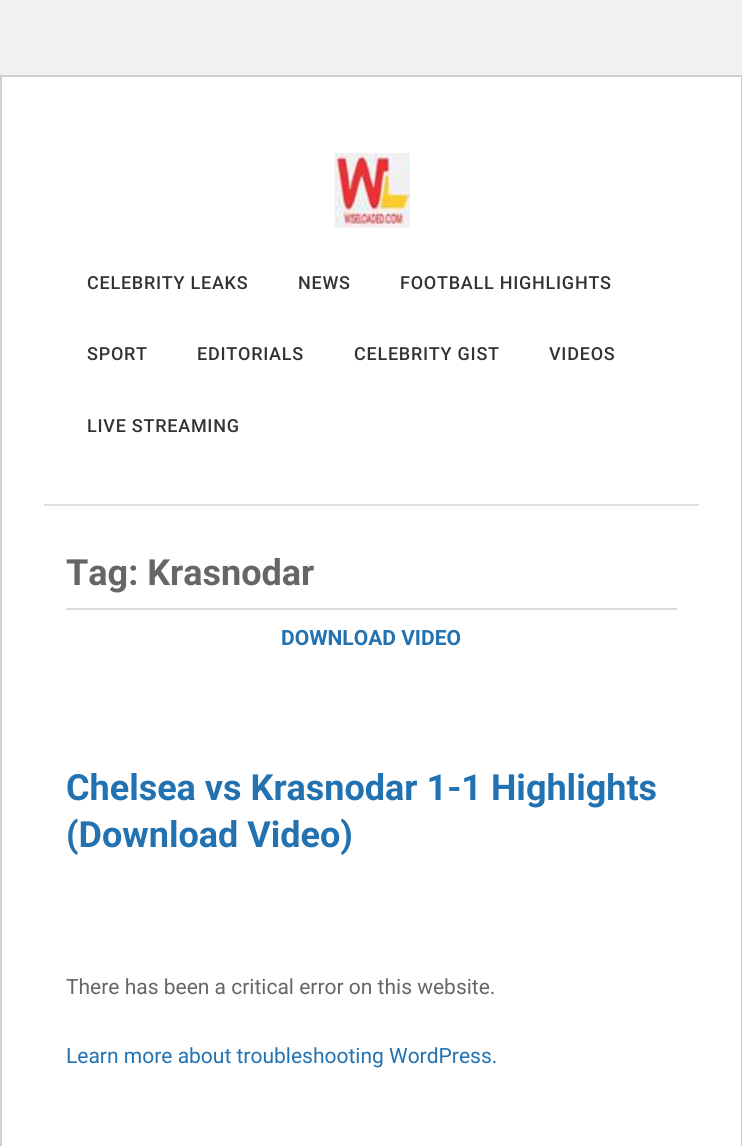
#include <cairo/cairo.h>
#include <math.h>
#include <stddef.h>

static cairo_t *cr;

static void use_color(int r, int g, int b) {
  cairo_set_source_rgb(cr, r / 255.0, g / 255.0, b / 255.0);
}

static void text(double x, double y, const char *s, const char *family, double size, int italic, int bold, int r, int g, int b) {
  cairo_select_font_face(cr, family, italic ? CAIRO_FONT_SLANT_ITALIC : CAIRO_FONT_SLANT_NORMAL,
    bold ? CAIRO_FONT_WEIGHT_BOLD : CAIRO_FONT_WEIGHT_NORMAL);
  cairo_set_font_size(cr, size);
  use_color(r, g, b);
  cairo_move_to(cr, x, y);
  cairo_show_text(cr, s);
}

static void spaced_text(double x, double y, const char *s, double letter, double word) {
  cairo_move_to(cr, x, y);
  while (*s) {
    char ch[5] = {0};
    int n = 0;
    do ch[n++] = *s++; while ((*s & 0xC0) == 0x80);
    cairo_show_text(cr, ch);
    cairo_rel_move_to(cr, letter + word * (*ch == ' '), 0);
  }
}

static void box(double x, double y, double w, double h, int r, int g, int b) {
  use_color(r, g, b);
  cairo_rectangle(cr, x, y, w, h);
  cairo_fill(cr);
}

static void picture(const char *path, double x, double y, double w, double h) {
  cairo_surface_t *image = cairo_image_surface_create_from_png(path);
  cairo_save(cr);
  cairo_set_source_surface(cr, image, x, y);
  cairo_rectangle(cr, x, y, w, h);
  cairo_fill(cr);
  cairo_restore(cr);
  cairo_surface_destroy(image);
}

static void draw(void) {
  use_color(241, 241, 241);
  cairo_paint(cr);
  use_color(255, 255, 255);
  cairo_rectangle(cr, 1, 76, 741, 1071);
  cairo_fill_preserve(cr);
  use_color(204, 208, 212);
  cairo_stroke(cr);
  box(44, 504, 655, 2, 224, 224, 224);
  picture("img_01.png", 334, 153, 76, 75);
  box(66, 608, 611, 2, 218, 218, 218);
  cairo_select_font_face(cr, "Roboto Medium", CAIRO_FONT_SLANT_NORMAL, CAIRO_FONT_WEIGHT_NORMAL);
  cairo_set_font_size(cr, 18);
  use_color(51, 51, 51);
  spaced_text(87, 289, "CELEBRITY LEAKS", 0.75, 0);
  spaced_text(298, 289, "NEWS", 0.75, 0);
  spaced_text(400, 289, "FOOTBALL HIGHLIGHTS", 0.75, 0);
  spaced_text(87, 360, "SPORT", 0.75, 0);
  spaced_text(197, 360, "EDITORIALS", 0.75, 0);
  spaced_text(354, 360, "CELEBRITY GIST", 0.75, 0);
  spaced_text(549, 360, "VIDEOS", 0.75, 0);
  spaced_text(87, 432, "LIVE STREAMING", 0.75, 0);
  text(66, 585, "Tag: Krasnodar", "Roboto", 36, 0, 1, 102, 102, 102);
  text(281, 645, "DOWNLOAD VIDEO", "Roboto", 21, 0, 1, 34, 113, 177);
  text(66, 800, "Chelsea vs Krasnodar 1-1 Highlights", "Roboto", 36, 0, 1, 34, 113, 177);
  text(66, 847, "(Download Video)", "Roboto", 36, 0, 1, 34, 113, 177);
  text(66, 994, "There has been a critical error on this website.", "Roboto", 21, 0, 0, 102, 102, 102);
  text(66, 1063, "Learn more about troubleshooting WordPress.", "Roboto", 21, 0, 0, 34, 113, 177);
}

int main(void) {
  cairo_surface_t *surface = cairo_image_surface_create(CAIRO_FORMAT_RGB24, 742, 1146);
  cr = cairo_create(surface);
  cairo_font_options_t *options = cairo_font_options_create();
  cairo_font_options_set_hint_metrics(options, CAIRO_HINT_METRICS_OFF);
  cairo_font_options_set_hint_style(options, CAIRO_HINT_STYLE_NONE);
  cairo_set_font_options(cr, options);
  cairo_set_miter_limit(cr, 4);
  draw();
  cairo_surface_write_to_png(surface, "out.png");
  cairo_font_options_destroy(options);
  cairo_destroy(cr);
  cairo_surface_destroy(surface);
  return 0;
}
